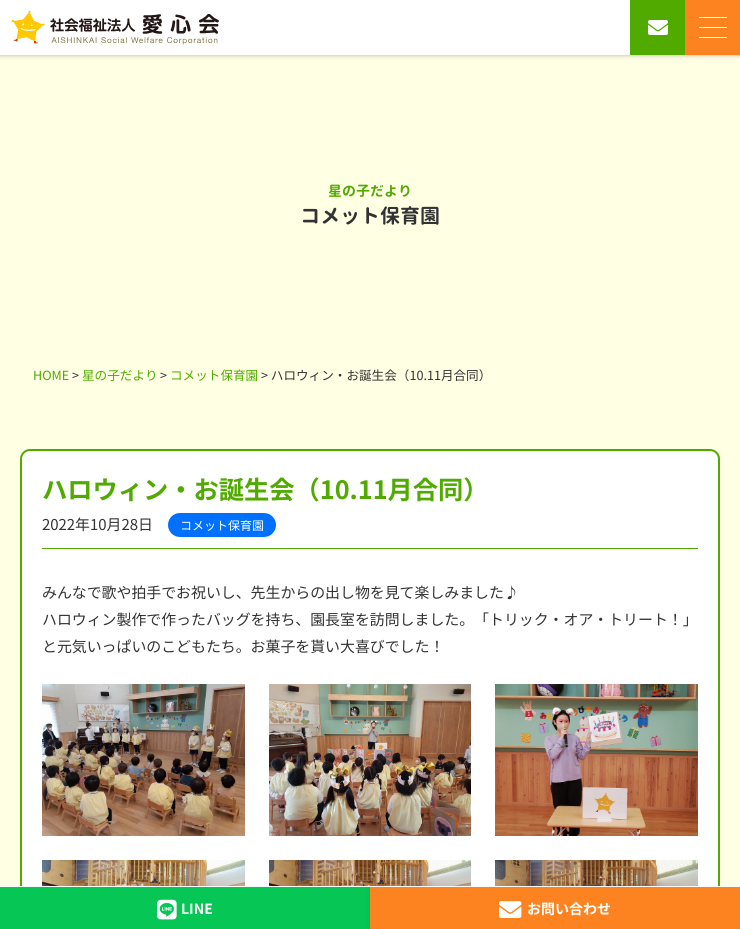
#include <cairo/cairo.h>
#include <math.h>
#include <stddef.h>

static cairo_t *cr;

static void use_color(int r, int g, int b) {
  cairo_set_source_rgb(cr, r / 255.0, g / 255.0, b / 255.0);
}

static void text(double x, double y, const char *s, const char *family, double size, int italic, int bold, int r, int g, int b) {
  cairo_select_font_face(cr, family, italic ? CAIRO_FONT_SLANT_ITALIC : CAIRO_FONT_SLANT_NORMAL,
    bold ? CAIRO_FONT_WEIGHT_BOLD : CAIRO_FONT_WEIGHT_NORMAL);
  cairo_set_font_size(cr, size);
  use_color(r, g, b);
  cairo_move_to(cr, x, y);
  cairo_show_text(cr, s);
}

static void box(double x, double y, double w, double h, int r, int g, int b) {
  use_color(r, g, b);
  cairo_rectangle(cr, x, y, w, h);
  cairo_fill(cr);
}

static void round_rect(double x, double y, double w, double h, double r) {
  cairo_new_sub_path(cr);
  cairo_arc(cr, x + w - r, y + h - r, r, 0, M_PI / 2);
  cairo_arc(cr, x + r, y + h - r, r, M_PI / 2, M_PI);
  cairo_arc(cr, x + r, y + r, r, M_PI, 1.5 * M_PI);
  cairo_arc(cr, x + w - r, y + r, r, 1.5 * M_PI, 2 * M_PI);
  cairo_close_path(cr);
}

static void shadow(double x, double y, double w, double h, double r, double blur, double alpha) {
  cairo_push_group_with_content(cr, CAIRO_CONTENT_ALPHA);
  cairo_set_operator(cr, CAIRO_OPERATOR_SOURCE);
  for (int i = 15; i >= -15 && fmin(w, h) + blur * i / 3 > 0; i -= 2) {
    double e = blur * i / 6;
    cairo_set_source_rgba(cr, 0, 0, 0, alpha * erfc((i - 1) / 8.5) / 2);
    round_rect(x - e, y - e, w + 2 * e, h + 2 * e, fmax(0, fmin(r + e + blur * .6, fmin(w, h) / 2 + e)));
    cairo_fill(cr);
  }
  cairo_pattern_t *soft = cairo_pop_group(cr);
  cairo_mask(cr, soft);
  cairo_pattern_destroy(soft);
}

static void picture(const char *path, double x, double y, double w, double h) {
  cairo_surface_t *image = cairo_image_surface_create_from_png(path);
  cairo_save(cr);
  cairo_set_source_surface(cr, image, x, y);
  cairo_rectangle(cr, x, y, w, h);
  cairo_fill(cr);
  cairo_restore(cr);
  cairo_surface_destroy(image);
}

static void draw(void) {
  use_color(255, 255, 228);
  cairo_paint(cr);
  use_color(0, 0, 0);
  shadow(0, 0, 740, 55, 0, 2.5, 0.3);
  box(0, 0, 630, 55, 255, 255, 255);
  picture("img_01.png", 11, 10, 208, 35);
  box(630, 0, 55, 55, 80, 170, 0);
  picture("img_02.png", 648, 20, 20, 15);
  box(685, 0, 55, 55, 252, 131, 31);
  box(699, 17, 28, 1, 255, 255, 255);
  box(699, 27, 28, 1, 255, 255, 255);
  box(699, 37, 28, 1, 255, 255, 255);
  round_rect(21, 450, 698, 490, 9);
  cairo_fill_preserve(cr);
  use_color(80, 170, 0);
  cairo_stroke(cr);
  box(42, 548, 656, 1, 80, 170, 0);
  use_color(0, 112, 255);
  round_rect(168, 513, 108, 24, 12);
  cairo_fill(cr);
  picture("img_03.png", 42, 684, 203, 152);
  picture("img_04.png", 269, 684, 202, 152);
  picture("img_05.png", 495, 684, 203, 152);
  picture("img_06.png", 42, 860, 203, 26);
  picture("img_07.png", 269, 860, 202, 26);
  picture("img_08.png", 495, 860, 203, 26);
  box(0, 886, 740, 1, 255, 255, 255);
  use_color(0, 0, 0);
  shadow(0, 889, 370, 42, 0, 4, 0.08);
  box(0, 887, 370, 42, 6, 199, 85);
  picture("img_09.png", 157, 899, 20, 21);
  use_color(0, 0, 0);
  shadow(370, 889, 370, 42, 0, 4, 0.08);
  box(370, 887, 370, 42, 252, 131, 31);
  picture("img_10.png", 499, 901, 23, 17);
  text(328, 196, "星の子だより", "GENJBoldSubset", 14, 0, 1, 80, 170, 0);
  text(300, 223, "コメット保育園", "GENJBoldSubset", 20, 0, 1, 51, 51, 51);
  text(33, 380, "HOME", "Noto Sans JP", 12.6, 0, 0, 80, 170, 0);
  text(72, 380, ">", "Noto Sans JP", 12.6, 0, 0, 51, 51, 51);
  text(82, 380, "星の子だより", "Noto Sans JP", 12.6, 0, 0, 80, 170, 0);
  text(160, 380, ">", "Noto Sans JP", 12.6, 0, 0, 51, 51, 51);
  text(170, 380, "コメット保育園", "Noto Sans JP", 12.6, 0, 0, 80, 170, 0);
  text(261, 380, "> ハロウィン・お誕生会（10.11月合同）", "Noto Sans JP", 12.6, 0, 0, 51, 51, 51);
  text(42, 499, "ハロウィン・お誕生会（10.11月合同）", "Noto Sans JP", 25.25, 0, 1, 80, 170, 0);
  text(42, 530, "2022年10月28日", "Noto Sans JP", 14.9, 0, 0, 51, 51, 51);
  text(180, 530, "コメット保育園", "Noto Sans JP", 12, 0, 0, 255, 255, 255);
  text(42, 598, "みんなで歌や拍手でお祝いし、先生からの出し物を見て楽しみました♪", "Noto Sans JP", 14.9, 0, 0, 51, 51, 51);
  text(42, 625, "ハロウィン製作で作ったバッグを持ち、園長室を訪問しました。「トリック・オア・トリート！」", "Noto Sans JP", 14.9, 0, 0, 51, 51, 51);
  text(42, 652, "と元気いっぱいのこどもたち。お菓子を貰い大喜びでした！", "Noto Sans JP", 14.9, 0, 0, 51, 51, 51);
  text(181, 914, "LINE", "Noto Sans JP", 14, 0, 1, 255, 255, 255);
  text(527, 914, "お問い合わせ", "Noto Sans JP", 14, 0, 1, 255, 255, 255);
}

int main(void) {
  cairo_surface_t *surface = cairo_image_surface_create(CAIRO_FORMAT_RGB24, 740, 929);
  cr = cairo_create(surface);
  cairo_font_options_t *options = cairo_font_options_create();
  cairo_font_options_set_hint_metrics(options, CAIRO_HINT_METRICS_OFF);
  cairo_font_options_set_hint_style(options, CAIRO_HINT_STYLE_NONE);
  cairo_set_font_options(cr, options);
  cairo_set_miter_limit(cr, 4);
  draw();
  cairo_surface_write_to_png(surface, "out.png");
  cairo_font_options_destroy(options);
  cairo_destroy(cr);
  cairo_surface_destroy(surface);
  return 0;
}
